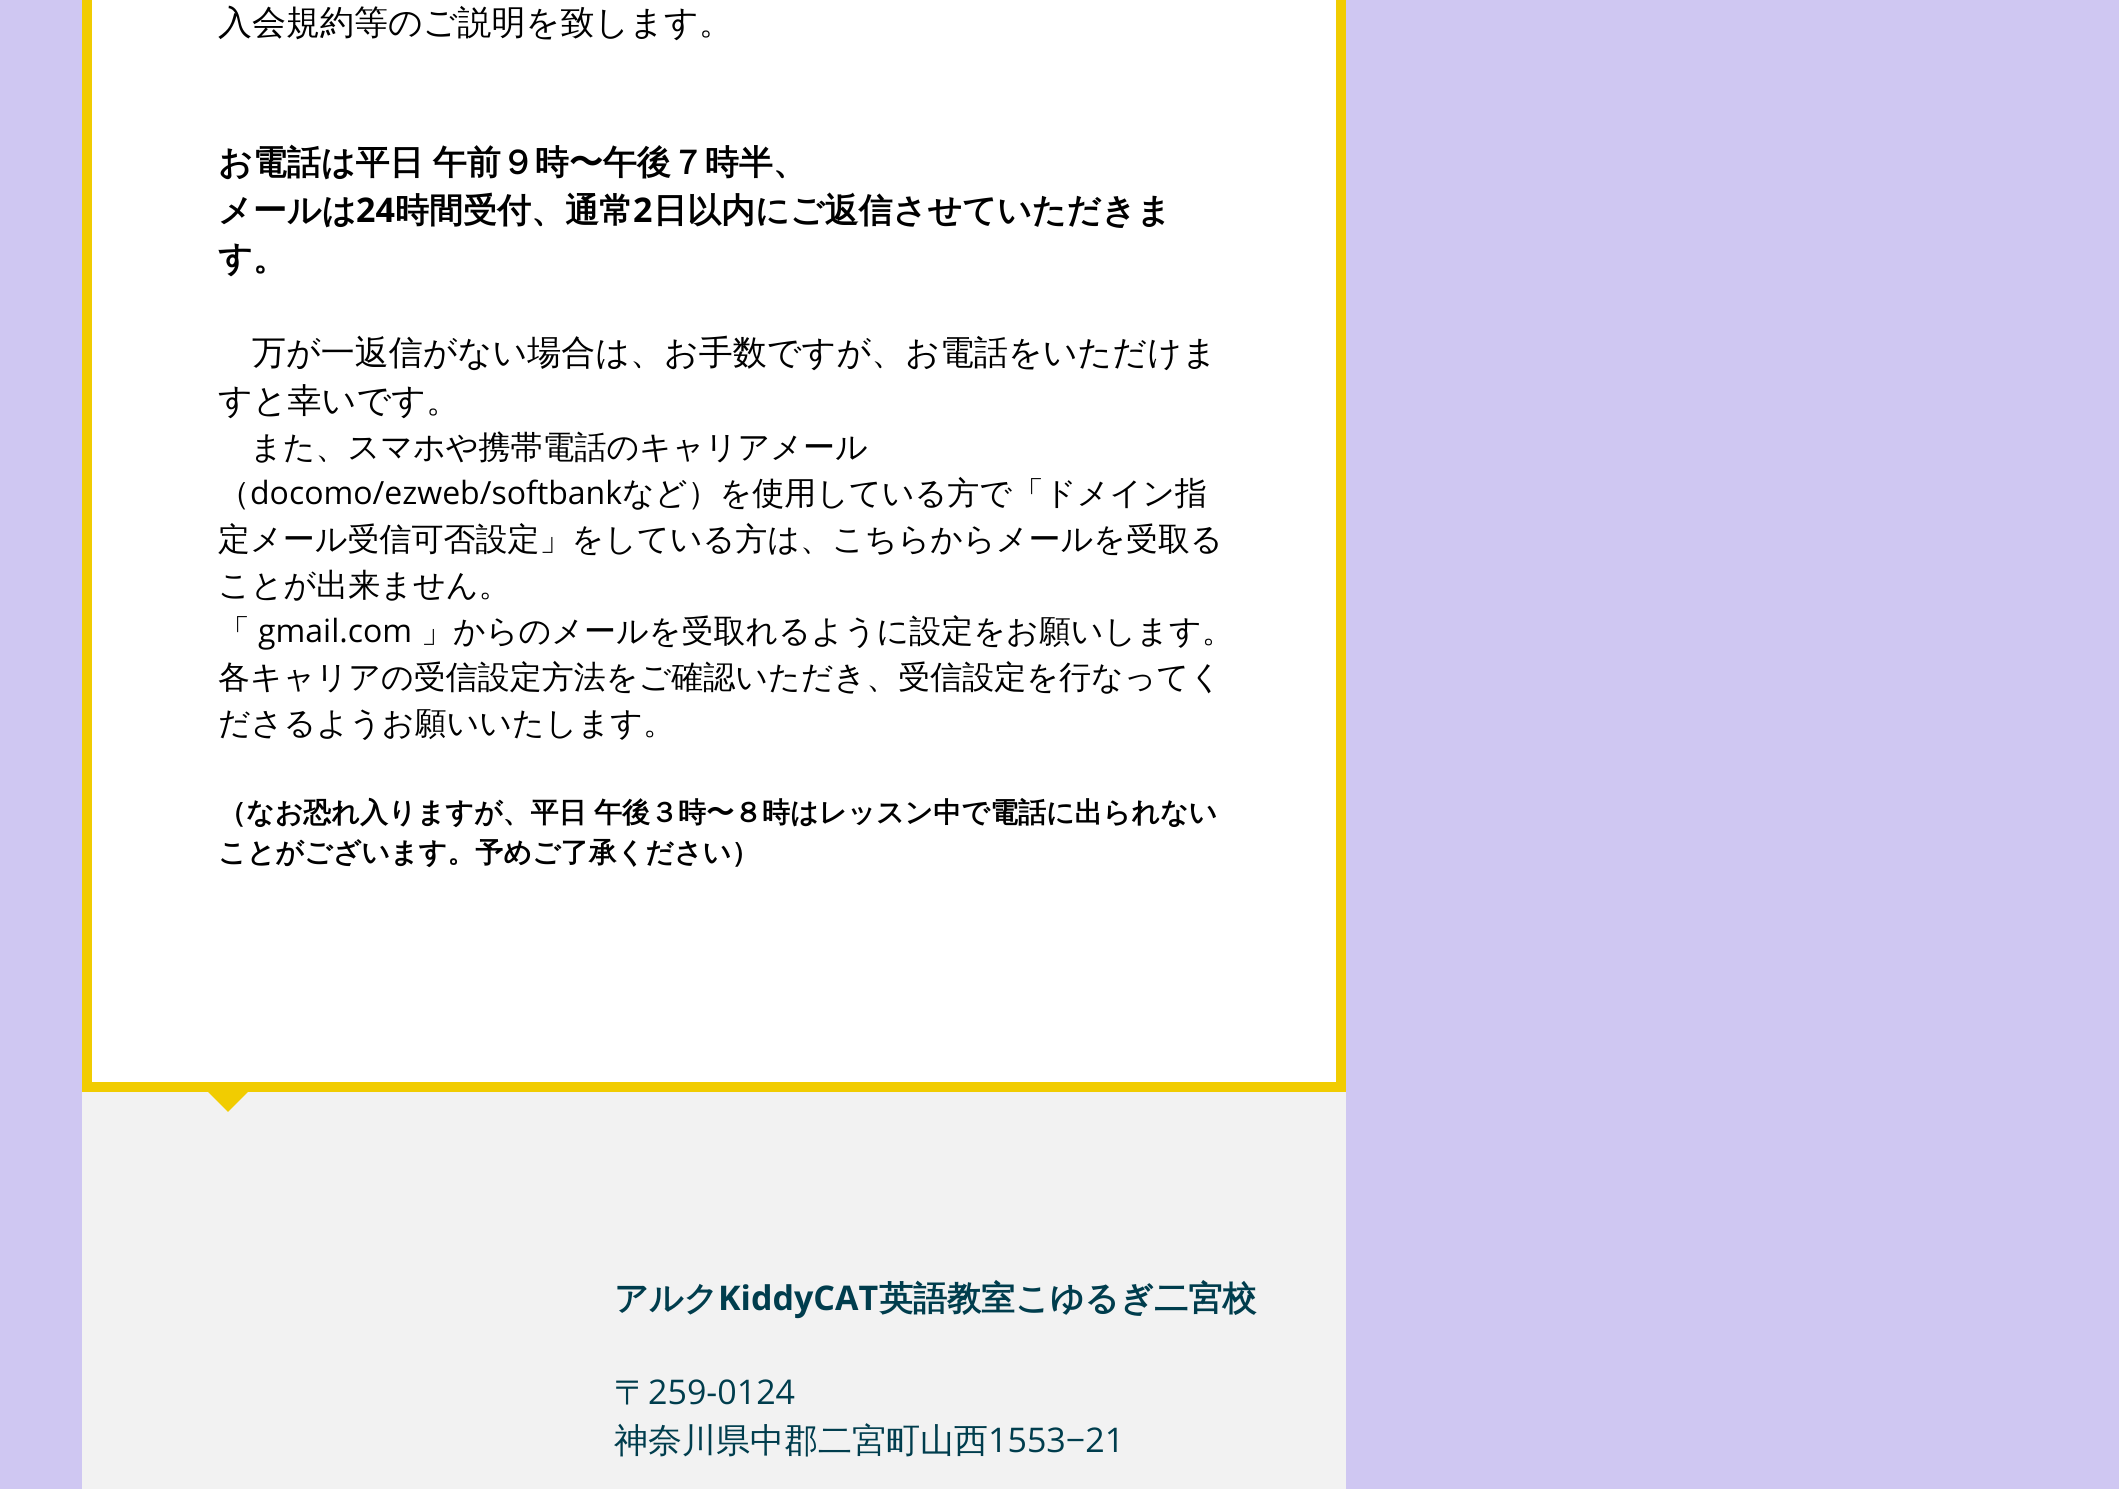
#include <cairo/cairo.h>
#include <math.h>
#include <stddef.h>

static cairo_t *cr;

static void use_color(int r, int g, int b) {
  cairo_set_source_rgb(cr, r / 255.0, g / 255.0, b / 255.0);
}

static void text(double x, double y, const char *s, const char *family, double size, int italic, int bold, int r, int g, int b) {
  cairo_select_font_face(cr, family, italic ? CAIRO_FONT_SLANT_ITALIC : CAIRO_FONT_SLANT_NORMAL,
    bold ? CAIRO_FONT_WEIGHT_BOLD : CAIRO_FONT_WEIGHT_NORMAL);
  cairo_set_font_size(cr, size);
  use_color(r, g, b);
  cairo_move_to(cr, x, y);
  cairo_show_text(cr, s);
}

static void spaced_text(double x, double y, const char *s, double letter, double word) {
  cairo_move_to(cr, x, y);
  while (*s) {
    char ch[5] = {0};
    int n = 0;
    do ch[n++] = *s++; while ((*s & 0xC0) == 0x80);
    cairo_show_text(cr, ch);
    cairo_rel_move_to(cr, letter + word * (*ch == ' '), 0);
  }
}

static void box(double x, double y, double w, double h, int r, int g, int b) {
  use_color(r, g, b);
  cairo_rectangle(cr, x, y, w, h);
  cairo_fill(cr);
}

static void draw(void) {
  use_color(207, 199, 242);
  cairo_paint(cr);
  use_color(255, 255, 255);
  cairo_rectangle(cr, 87, -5, 1254, 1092);
  cairo_fill_preserve(cr);
  use_color(241, 204, 1);
  cairo_set_line_width(cr, 10);
  cairo_stroke(cr);
  box(82, 1092, 1264, 397, 242, 242, 242);
  use_color(241, 204, 1);
  cairo_new_path(cr);
  cairo_move_to(cr, 208, 1092);
  cairo_line_to(cr, 248, 1092);
  cairo_line_to(cr, 228, 1112);
  cairo_close_path(cr);
  cairo_fill(cr);
  text(218, 34, "入会規約等のご説明を致します。", "WenQuanYi Zen Hei Medium", 34, 0, 0, 0, 0, 0);
  cairo_select_font_face(cr, "WenQuanYi Zen Hei", CAIRO_FONT_SLANT_NORMAL, CAIRO_FONT_WEIGHT_BOLD);
  spaced_text(218, 174, "お電話は平日 午前９時〜午後７時半、", 0, -1);
  text(218, 222, "メールは", "WenQuanYi Zen Hei", 34, 0, 1, 0, 0, 0);
  text(356, 222, "24", "Open Sans", 34, 0, 1, 0, 0, 0);
  text(395, 222, "時間受付、通常", "WenQuanYi Zen Hei", 34, 0, 1, 0, 0, 0);
  text(633, 222, "2", "Open Sans", 34, 0, 1, 0, 0, 0);
  text(653, 222, "日以内にご返信させていただきま", "WenQuanYi Zen Hei", 34, 0, 1, 0, 0, 0);
  text(218, 270, "す。", "WenQuanYi Zen Hei", 34, 0, 1, 0, 0, 0);
  text(252, 364, "万が一返信がない場合は、お手数ですが、お電話をいただけま", "WenQuanYi Zen Hei Medium", 34, 0, 0, 0, 0, 0);
  text(218, 412, "すと幸いです。", "WenQuanYi Zen Hei Medium", 34, 0, 0, 0, 0, 0);
  text(250, 458, "また、スマホや携帯電話のキャリアメール", "WenQuanYi Zen Hei Medium", 32, 0, 0, 0, 0, 0);
  text(218, 504, "（", "WenQuanYi Zen Hei Medium", 32, 0, 0, 0, 0, 0);
  text(250, 504, "docomo/ezweb/softbank", "Open Sans", 32, 0, 0, 0, 0, 0);
  text(622, 504, "など）を使用している方で「ドメイン指", "WenQuanYi Zen Hei Medium", 32, 0, 0, 0, 0, 0);
  text(218, 550, "定メール受信可否設定」をしている方は、こちらからメールを受取る", "WenQuanYi Zen Hei Medium", 32, 0, 0, 0, 0, 0);
  text(218, 596, "ことが出来ません。", "WenQuanYi Zen Hei Medium", 32, 0, 0, 0, 0, 0);
  text(218, 642, "「", "WenQuanYi Zen Hei Medium", 32, 0, 0, 0, 0, 0);
  text(258, 642, "gmail.com", "Open Sans", 32, 0, 0, 0, 0, 0);
  text(421, 642, "」からのメールを受取れるように設定をお願いします。", "WenQuanYi Zen Hei Medium", 32, 0, 0, 0, 0, 0);
  text(218, 688, "各キャリアの受信設定方法をご確認いただき、受信設定を行なってく", "WenQuanYi Zen Hei Medium", 32, 0, 0, 0, 0, 0);
  text(218, 734, "ださるようお願いいたします。", "WenQuanYi Zen Hei Medium", 32, 0, 0, 0, 0, 0);
  cairo_select_font_face(cr, "WenQuanYi Zen Hei", CAIRO_FONT_SLANT_NORMAL, CAIRO_FONT_WEIGHT_BOLD);
  cairo_set_font_size(cr, 28);
  spaced_text(218, 822, "（なお恐れ入りますが、平日 午後３時〜８時はレッスン中で電話に出られない", 0, -1);
  text(218, 862, "ことがございます。予めご了承ください）", "WenQuanYi Zen Hei", 28, 0, 1, 0, 0, 0);
  text(614, 1310, "アルク", "WenQuanYi Zen Hei", 34, 0, 1, 0, 61, 77);
  text(718, 1310, "KiddyCAT", "Open Sans", 34, 0, 1, 0, 61, 77);
  text(879, 1310, "英語教室こゆるぎ二宮校", "WenQuanYi Zen Hei", 34, 0, 1, 0, 61, 77);
  text(614, 1404, "〒", "WenQuanYi Zen Hei Medium", 34, 0, 0, 0, 61, 77);
  text(648, 1404, "259-0124", "Open Sans", 34, 0, 0, 0, 61, 77);
  text(614, 1452, "神奈川県中郡二宮町山西", "WenQuanYi Zen Hei Medium", 34, 0, 0, 0, 61, 77);
  text(988, 1452, "1553−21", "Open Sans", 34, 0, 0, 0, 61, 77);
}

int main(void) {
  cairo_surface_t *surface = cairo_image_surface_create(CAIRO_FORMAT_RGB24, 2119, 1489);
  cr = cairo_create(surface);
  cairo_font_options_t *options = cairo_font_options_create();
  cairo_font_options_set_hint_metrics(options, CAIRO_HINT_METRICS_OFF);
  cairo_font_options_set_hint_style(options, CAIRO_HINT_STYLE_NONE);
  cairo_set_font_options(cr, options);
  cairo_set_miter_limit(cr, 4);
  draw();
  cairo_surface_write_to_png(surface, "out.png");
  cairo_font_options_destroy(options);
  cairo_destroy(cr);
  cairo_surface_destroy(surface);
  return 0;
}
